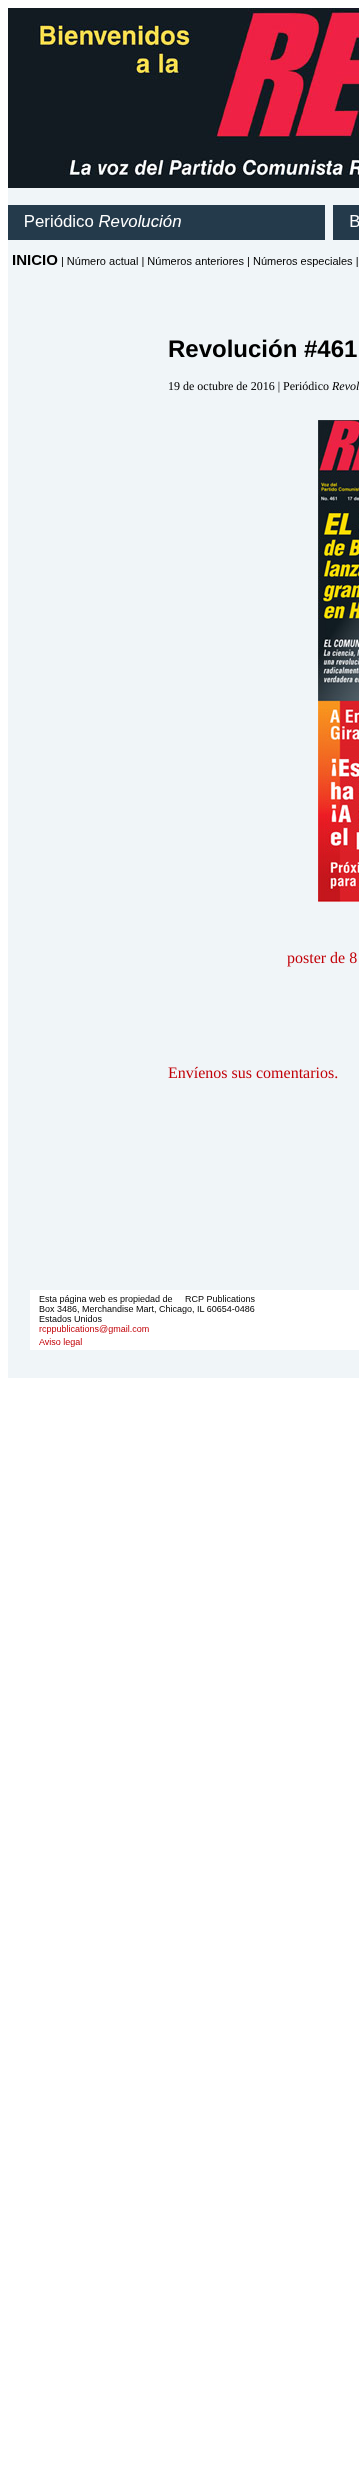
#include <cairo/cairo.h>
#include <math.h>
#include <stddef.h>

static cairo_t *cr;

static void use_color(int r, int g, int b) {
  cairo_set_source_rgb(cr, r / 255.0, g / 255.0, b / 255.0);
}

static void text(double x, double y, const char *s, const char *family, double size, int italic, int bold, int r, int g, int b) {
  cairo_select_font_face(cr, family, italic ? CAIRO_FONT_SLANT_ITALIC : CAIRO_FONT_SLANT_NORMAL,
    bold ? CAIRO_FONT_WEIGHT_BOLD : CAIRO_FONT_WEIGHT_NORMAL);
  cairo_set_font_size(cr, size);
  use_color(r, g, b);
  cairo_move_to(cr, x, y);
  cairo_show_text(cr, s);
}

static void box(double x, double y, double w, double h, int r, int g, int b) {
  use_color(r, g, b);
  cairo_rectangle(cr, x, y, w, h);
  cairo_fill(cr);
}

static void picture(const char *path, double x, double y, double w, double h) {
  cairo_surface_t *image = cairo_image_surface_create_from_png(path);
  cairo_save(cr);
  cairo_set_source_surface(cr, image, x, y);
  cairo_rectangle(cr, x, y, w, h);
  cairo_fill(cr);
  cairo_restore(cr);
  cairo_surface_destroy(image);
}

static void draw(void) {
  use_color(255, 255, 255);
  cairo_paint(cr);
  box(8, 188, 351, 1190, 240, 245, 248);
  picture("img_01.png", 8, 8, 351, 180);
  picture("img_02.png", 8, 205, 351, 35);
  picture("img_03.png", 13, 255, 345, 12);
  picture("img_04.png", 318, 420, 41, 482);
  picture("img_05.png", 30, 1290, 329, 60);
  text(168, 357, "Revolución #461", "Liberation Sans", 24, 0, 1, 0, 0, 0);
  text(168, 390, "19 de octubre de 2016 | Periódico", "Liberation Serif", 12, 0, 0, 0, 0, 0);
  text(332, 390, "Revol", "Liberation Serif", 12, 1, 0, 0, 0, 0);
  text(287, 963, "poster de 8", "Liberation Serif", 16, 0, 0, 194, 0, 7);
  text(168, 1078, "Envíenos sus comentarios.", "Liberation Serif", 16, 0, 0, 194, 0, 7);
}

int main(void) {
  cairo_surface_t *surface = cairo_image_surface_create(CAIRO_FORMAT_RGB24, 359, 2477);
  cr = cairo_create(surface);
  cairo_font_options_t *options = cairo_font_options_create();
  cairo_font_options_set_hint_metrics(options, CAIRO_HINT_METRICS_OFF);
  cairo_font_options_set_hint_style(options, CAIRO_HINT_STYLE_NONE);
  cairo_set_font_options(cr, options);
  cairo_set_miter_limit(cr, 4);
  draw();
  cairo_surface_write_to_png(surface, "out.png");
  cairo_font_options_destroy(options);
  cairo_destroy(cr);
  cairo_surface_destroy(surface);
  return 0;
}
